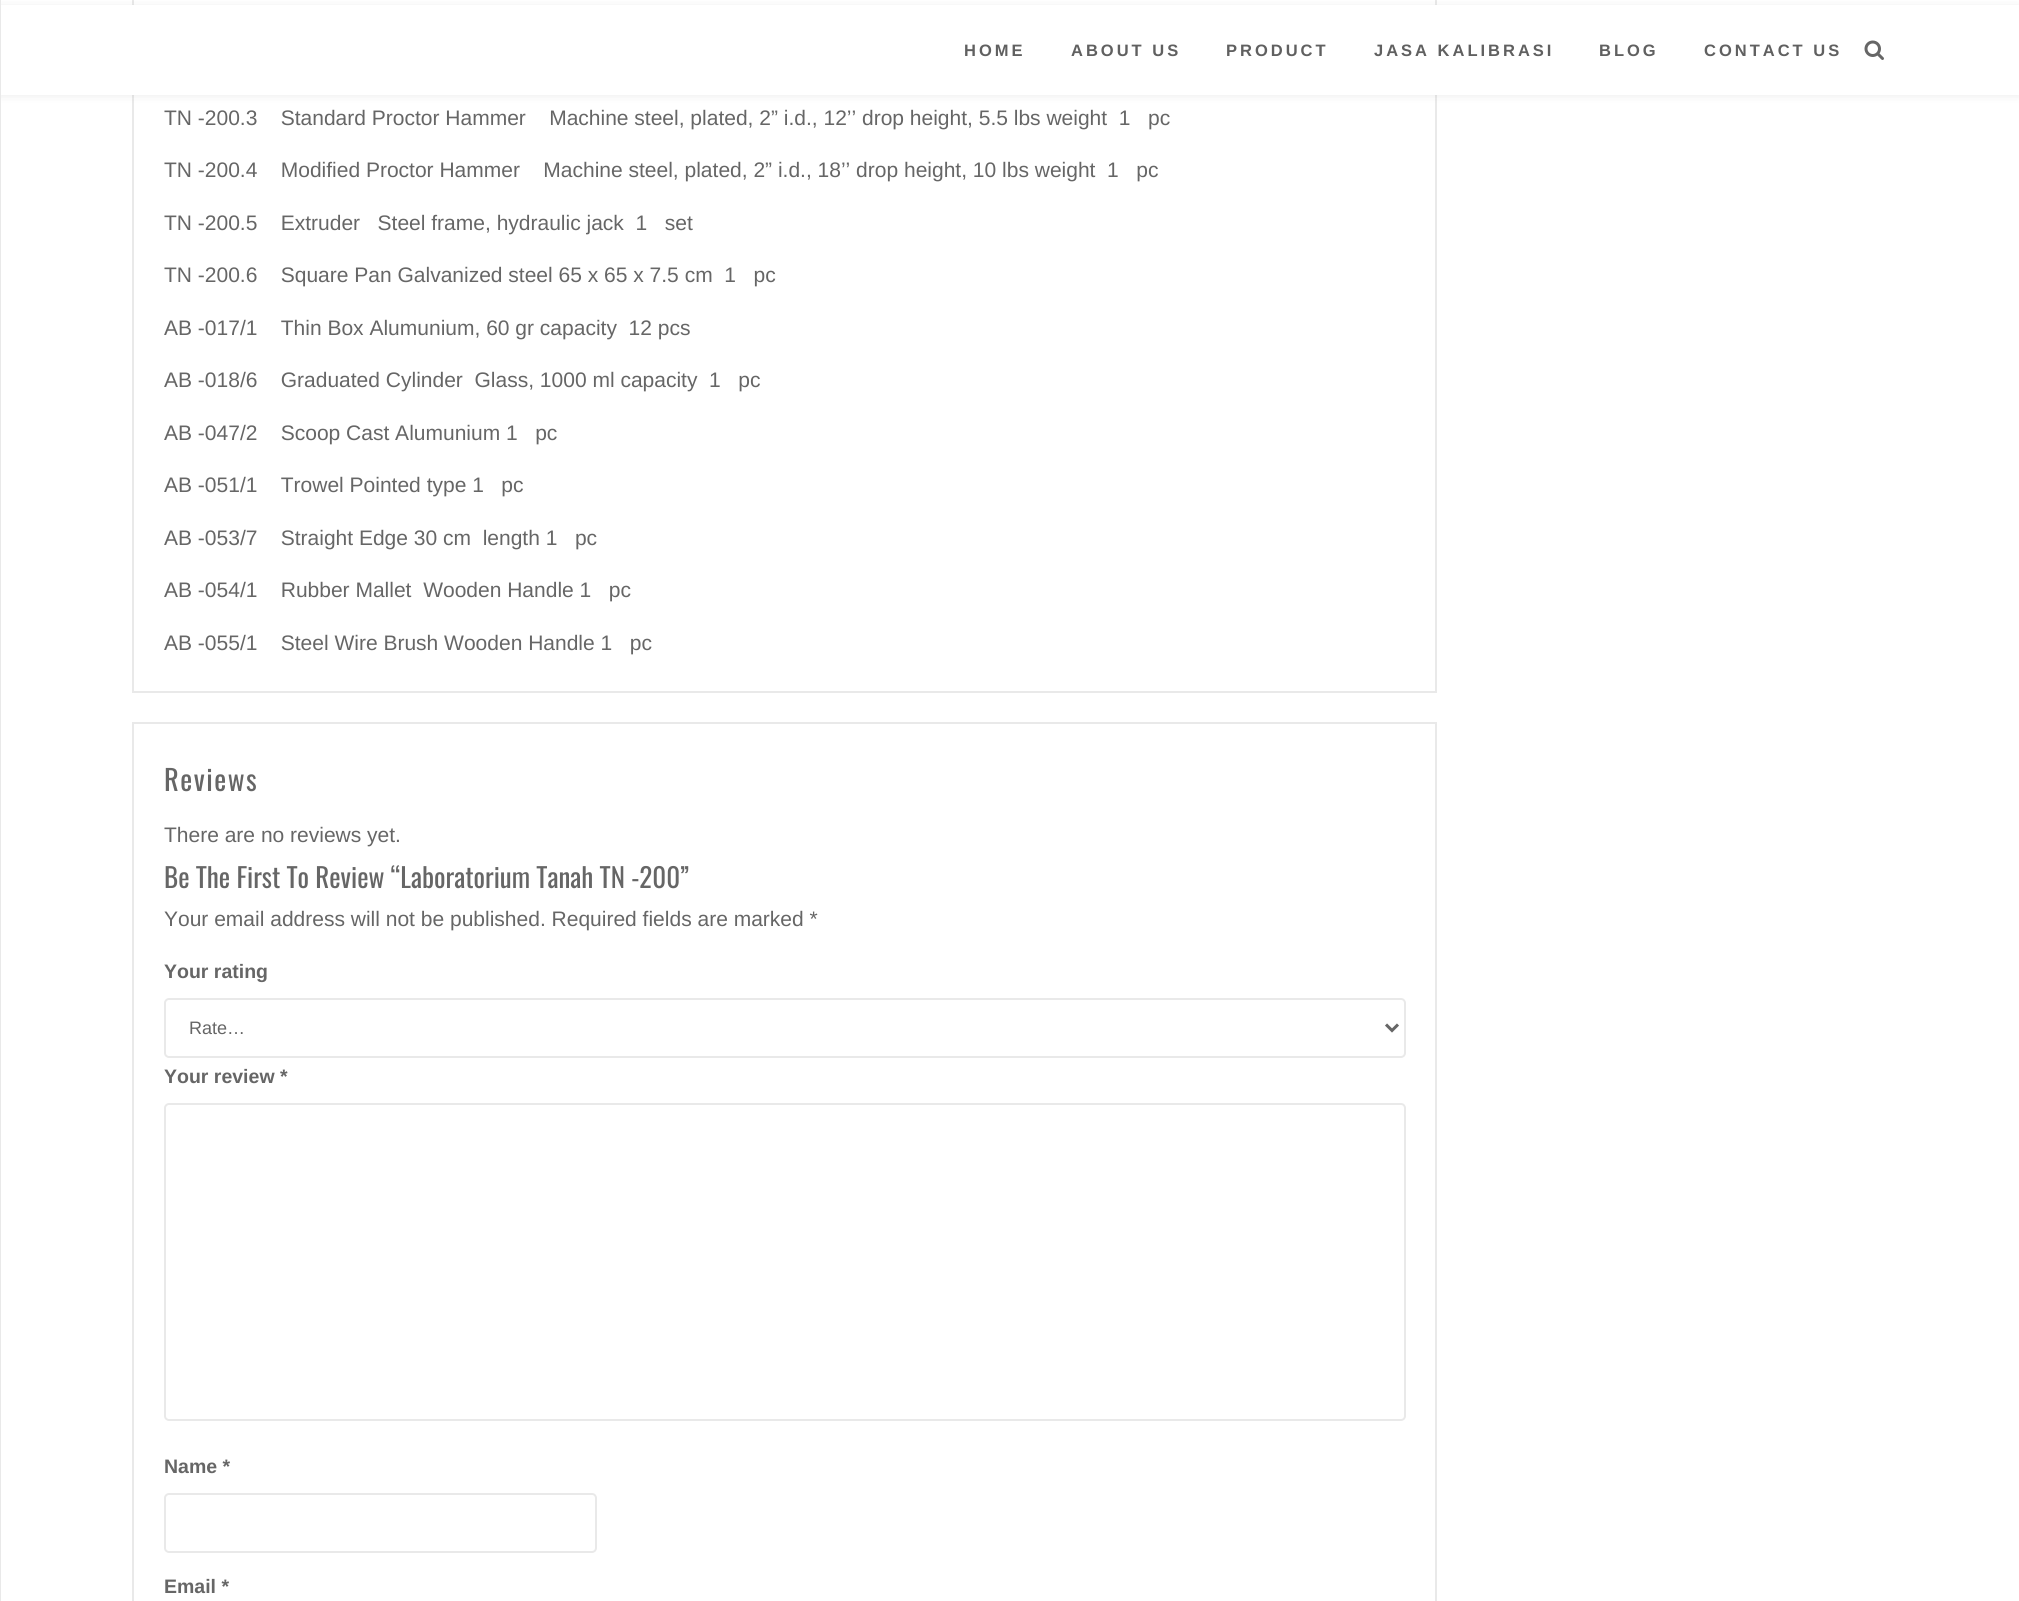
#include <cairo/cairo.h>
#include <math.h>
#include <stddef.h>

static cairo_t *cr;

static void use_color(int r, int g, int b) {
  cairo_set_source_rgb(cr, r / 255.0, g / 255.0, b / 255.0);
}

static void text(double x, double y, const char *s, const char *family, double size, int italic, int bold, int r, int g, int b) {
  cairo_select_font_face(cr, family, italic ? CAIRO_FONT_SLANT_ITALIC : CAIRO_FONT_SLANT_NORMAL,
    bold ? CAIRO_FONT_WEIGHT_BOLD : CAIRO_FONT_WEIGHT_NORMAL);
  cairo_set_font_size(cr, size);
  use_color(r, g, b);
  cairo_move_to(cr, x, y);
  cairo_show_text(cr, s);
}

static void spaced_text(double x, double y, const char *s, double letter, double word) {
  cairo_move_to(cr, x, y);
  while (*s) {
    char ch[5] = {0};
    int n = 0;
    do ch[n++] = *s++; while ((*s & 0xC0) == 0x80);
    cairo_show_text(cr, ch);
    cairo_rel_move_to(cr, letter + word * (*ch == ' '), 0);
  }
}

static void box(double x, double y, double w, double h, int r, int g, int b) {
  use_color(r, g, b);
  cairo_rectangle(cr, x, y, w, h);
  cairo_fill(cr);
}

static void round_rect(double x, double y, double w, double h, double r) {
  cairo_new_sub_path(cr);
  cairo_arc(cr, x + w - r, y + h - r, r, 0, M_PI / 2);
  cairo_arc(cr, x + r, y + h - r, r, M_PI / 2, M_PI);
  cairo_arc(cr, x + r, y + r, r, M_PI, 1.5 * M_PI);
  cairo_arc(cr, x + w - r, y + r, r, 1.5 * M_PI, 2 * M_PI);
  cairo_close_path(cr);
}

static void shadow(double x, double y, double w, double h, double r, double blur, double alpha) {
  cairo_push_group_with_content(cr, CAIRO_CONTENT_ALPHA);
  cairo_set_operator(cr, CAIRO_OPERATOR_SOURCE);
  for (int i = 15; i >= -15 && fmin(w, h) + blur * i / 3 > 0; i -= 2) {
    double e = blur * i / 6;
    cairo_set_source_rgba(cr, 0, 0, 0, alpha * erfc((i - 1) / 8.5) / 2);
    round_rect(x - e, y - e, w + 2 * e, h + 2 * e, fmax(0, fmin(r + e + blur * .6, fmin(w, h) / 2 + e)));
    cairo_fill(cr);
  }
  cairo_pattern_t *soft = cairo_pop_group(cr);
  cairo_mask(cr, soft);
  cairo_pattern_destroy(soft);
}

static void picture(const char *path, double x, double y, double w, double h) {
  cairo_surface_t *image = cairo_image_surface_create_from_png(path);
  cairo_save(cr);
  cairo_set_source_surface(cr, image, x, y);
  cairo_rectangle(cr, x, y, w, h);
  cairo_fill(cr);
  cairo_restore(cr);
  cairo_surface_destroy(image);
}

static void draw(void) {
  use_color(255, 255, 255);
  cairo_paint(cr);
  cairo_rectangle(cr, 133, -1, 1303, 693);
  use_color(233, 233, 233);
  cairo_stroke(cr);
  use_color(64, 64, 64);
  shadow(0, 6, 2019, 90, 0, 4, 0.1);
  box(0, 0, 1, 1601, 233, 233, 233);
  box(1, 5, 2018, 90, 255, 255, 255);
  picture("img_01.png", 1864, 40, 20, 20);
  cairo_rectangle(cr, 133, 723, 1303, 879);
  use_color(233, 233, 233);
  cairo_stroke(cr);
  round_rect(165, 999, 1240, 58, 4);
  cairo_stroke(cr);
  cairo_new_path(cr);
  cairo_move_to(cr, 1386, 1024.5);
  cairo_line_to(cr, 1392, 1030.5);
  cairo_line_to(cr, 1398, 1024.5);
  use_color(102, 102, 102);
  cairo_set_line_width(cr, 3);
  cairo_stroke(cr);
  round_rect(165, 1104, 1240, 316, 4);
  use_color(233, 233, 233);
  cairo_set_line_width(cr, 2);
  cairo_stroke(cr);
  round_rect(165, 1494, 431, 58, 4);
  cairo_stroke(cr);
  cairo_select_font_face(cr, "Arimo", CAIRO_FONT_SLANT_NORMAL, CAIRO_FONT_WEIGHT_BOLD);
  cairo_set_font_size(cr, 16.5);
  use_color(96, 96, 96);
  spaced_text(964, 56, "HOME", 3, 0);
  spaced_text(1071, 56, "ABOUT US", 3, 0);
  spaced_text(1226, 56, "PRODUCT", 3, 0);
  spaced_text(1374, 56, "JASA KALIBRASI", 3, 0);
  spaced_text(1599, 56, "BLOG", 3, 0);
  spaced_text(1704, 56, "CONTACT US", 3, 0);
  text(164, 125, "TN -200.3    Standard Proctor Hammer    Machine steel, plated, 2” i.d., 12’’ drop height, 5.5 lbs weight  1   pc", "Arimo", 21, 0, 0, 102, 102, 102);
  text(164, 177, "TN -200.4    Modified Proctor Hammer    Machine steel, plated, 2” i.d., 18’’ drop height, 10 lbs weight  1   pc", "Arimo", 21, 0, 0, 102, 102, 102);
  text(164, 230, "TN -200.5    Extruder   Steel frame, hydraulic jack  1   set", "Arimo", 21, 0, 0, 102, 102, 102);
  text(164, 282, "TN -200.6    Square Pan Galvanized steel 65 x 65 x 7.5 cm  1   pc", "Arimo", 21, 0, 0, 102, 102, 102);
  text(164, 335, "AB -017/1    Thin Box Alumunium, 60 gr capacity  12 pcs", "Arimo", 21, 0, 0, 102, 102, 102);
  text(164, 387, "AB -018/6    Graduated Cylinder  Glass, 1000 ml capacity  1   pc", "Arimo", 21, 0, 0, 102, 102, 102);
  text(164, 440, "AB -047/2    Scoop Cast Alumunium 1   pc", "Arimo", 21, 0, 0, 102, 102, 102);
  text(164, 492, "AB -051/1    Trowel Pointed type 1   pc", "Arimo", 21, 0, 0, 102, 102, 102);
  text(164, 545, "AB -053/7    Straight Edge 30 cm  length 1   pc", "Arimo", 21, 0, 0, 102, 102, 102);
  text(164, 597, "AB -054/1    Rubber Mallet  Wooden Handle 1   pc", "Arimo", 21, 0, 0, 102, 102, 102);
  text(164, 650, "AB -055/1    Steel Wire Brush Wooden Handle 1   pc", "Arimo", 21, 0, 0, 102, 102, 102);
  cairo_select_font_face(cr, "Oswald", CAIRO_FONT_SLANT_NORMAL, CAIRO_FONT_WEIGHT_NORMAL);
  cairo_set_font_size(cr, 28.5);
  spaced_text(164, 791, "Reviews", 1.5, 0);
  text(164, 842, "There are no reviews yet.", "Arimo", 21, 0, 0, 102, 102, 102);
  text(164, 888, "Be The First To Review “Laboratorium Tanah TN -200”", "Oswald", 27, 0, 0, 102, 102, 102);
  text(164, 926, "Your email address will not be published. Required fields are marked *", "Arimo", 21, 0, 0, 102, 102, 102);
  text(164, 978, "Your rating", "Arimo", 19.5, 0, 1, 102, 102, 102);
  text(189, 1034, "Rate…", "Arimo", 18, 0, 0, 102, 102, 102);
  text(164, 1083, "Your review *", "Arimo", 19.5, 0, 1, 102, 102, 102);
  text(164, 1473, "Name *", "Arimo", 19.5, 0, 1, 102, 102, 102);
  text(164, 1593, "Email *", "Arimo", 19.5, 0, 1, 102, 102, 102);
}

int main(void) {
  cairo_surface_t *surface = cairo_image_surface_create(CAIRO_FORMAT_RGB24, 2019, 1601);
  cr = cairo_create(surface);
  cairo_font_options_t *options = cairo_font_options_create();
  cairo_font_options_set_hint_metrics(options, CAIRO_HINT_METRICS_OFF);
  cairo_font_options_set_hint_style(options, CAIRO_HINT_STYLE_NONE);
  cairo_set_font_options(cr, options);
  cairo_set_miter_limit(cr, 4);
  draw();
  cairo_surface_write_to_png(surface, "out.png");
  cairo_font_options_destroy(options);
  cairo_destroy(cr);
  cairo_surface_destroy(surface);
  return 0;
}
